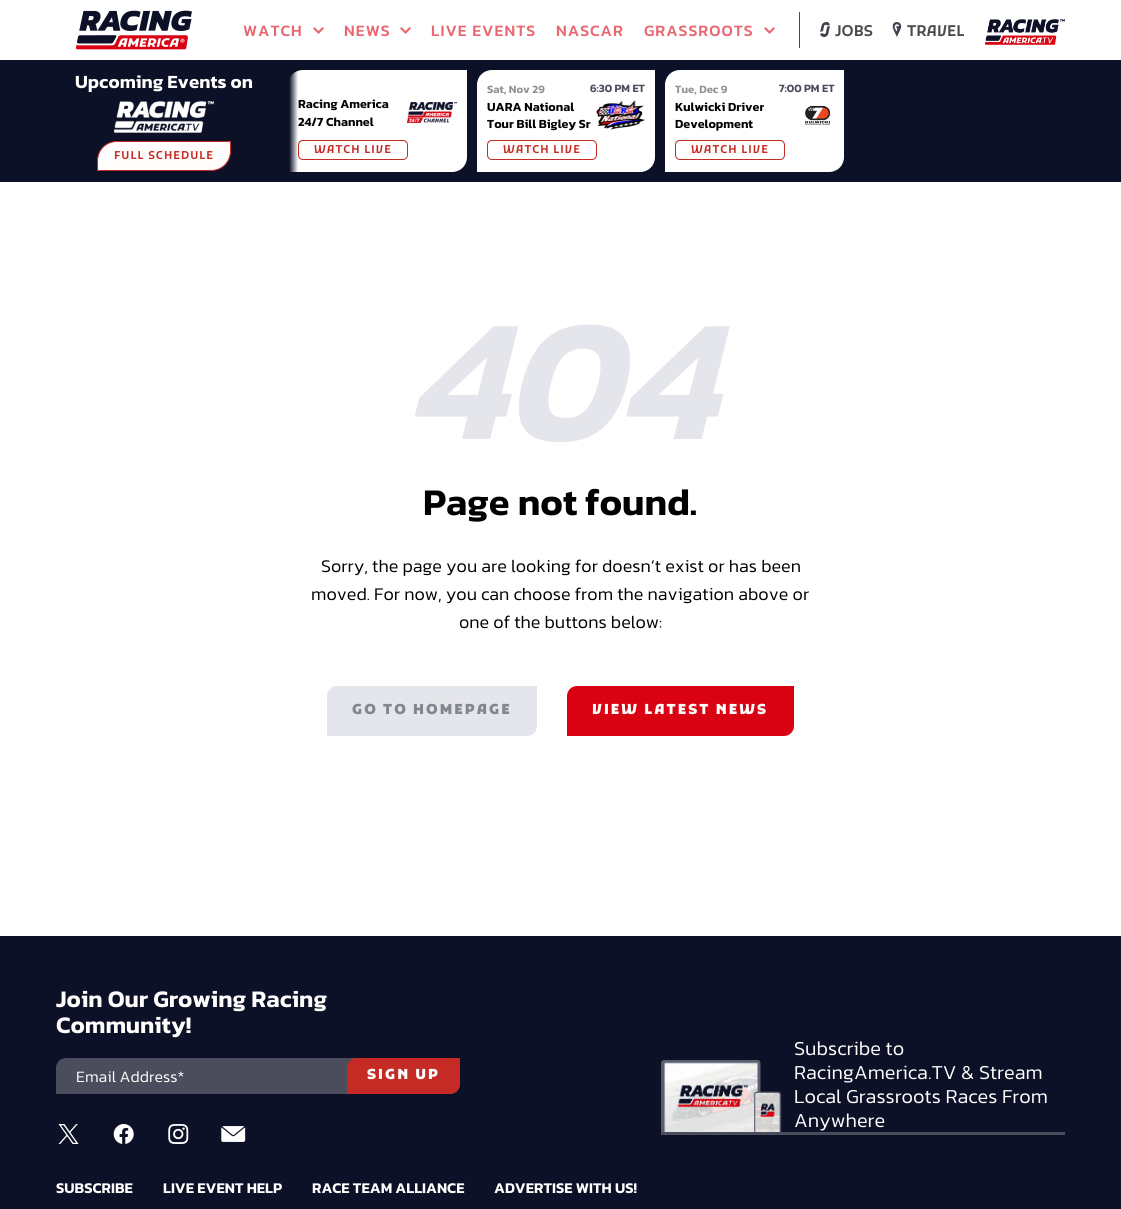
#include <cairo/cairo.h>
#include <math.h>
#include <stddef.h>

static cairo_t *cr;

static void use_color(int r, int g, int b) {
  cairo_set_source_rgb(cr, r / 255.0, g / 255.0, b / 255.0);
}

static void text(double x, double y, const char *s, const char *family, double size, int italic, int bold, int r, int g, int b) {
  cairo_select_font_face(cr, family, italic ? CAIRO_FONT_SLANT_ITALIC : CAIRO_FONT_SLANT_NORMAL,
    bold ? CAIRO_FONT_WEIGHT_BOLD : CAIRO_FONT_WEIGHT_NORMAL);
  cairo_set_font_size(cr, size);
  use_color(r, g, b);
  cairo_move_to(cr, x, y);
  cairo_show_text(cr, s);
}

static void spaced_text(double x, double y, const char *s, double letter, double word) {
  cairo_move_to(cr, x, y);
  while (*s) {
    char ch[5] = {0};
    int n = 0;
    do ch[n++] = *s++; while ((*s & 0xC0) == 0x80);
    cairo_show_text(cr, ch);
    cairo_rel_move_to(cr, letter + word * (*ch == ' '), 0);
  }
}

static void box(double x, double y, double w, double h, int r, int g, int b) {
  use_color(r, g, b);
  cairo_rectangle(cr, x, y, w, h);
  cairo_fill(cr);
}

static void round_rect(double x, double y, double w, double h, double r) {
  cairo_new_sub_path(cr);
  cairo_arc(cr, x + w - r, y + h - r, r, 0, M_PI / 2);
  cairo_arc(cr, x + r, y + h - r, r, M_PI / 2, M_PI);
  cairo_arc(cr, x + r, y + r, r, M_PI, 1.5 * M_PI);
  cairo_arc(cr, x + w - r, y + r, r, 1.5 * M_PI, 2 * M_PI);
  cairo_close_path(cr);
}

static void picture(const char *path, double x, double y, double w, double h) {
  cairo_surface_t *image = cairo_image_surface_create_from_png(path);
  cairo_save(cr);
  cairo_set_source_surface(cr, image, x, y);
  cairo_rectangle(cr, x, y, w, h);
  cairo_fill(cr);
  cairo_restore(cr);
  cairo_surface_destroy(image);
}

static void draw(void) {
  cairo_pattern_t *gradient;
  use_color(255, 255, 255);
  cairo_paint(cr);
  picture("img_01.png", 76, 10, 116, 40);
  picture("img_02.png", 313, 27, 11, 7);
  picture("img_02.png", 400, 27, 11, 7);
  picture("img_02.png", 764, 27, 11, 7);
  box(799, 12, 1, 36, 74, 74, 74);
  picture("img_03.png", 820, 22, 10, 15);
  picture("img_04.png", 892, 22, 10, 15);
  picture("img_05.png", 985, 19, 80, 26);
  box(0, 60, 1121, 122, 13, 17, 39);
  picture("img_06.png", 114, 101, 100, 32);
  use_color(255, 254, 253);
  cairo_new_path(cr);
  cairo_move_to(cr, 117, 141.5);
  cairo_line_to(cr, 230.5, 141.5);
  cairo_line_to(cr, 230.5, 151);
  cairo_curve_to(cr, 230.5, 162, 222, 170.5, 211, 170.5);
  cairo_line_to(cr, 97.5, 170.5);
  cairo_line_to(cr, 97.5, 161);
  cairo_curve_to(cr, 97.5, 150, 106, 141.5, 117, 141.5);
  cairo_close_path(cr);
  cairo_fill_preserve(cr);
  use_color(198, 42, 36);
  cairo_set_line_width(cr, 1);
  cairo_stroke(cr);
  use_color(255, 255, 255);
  cairo_new_path(cr);
  cairo_move_to(cr, 303, 70);
  cairo_line_to(cr, 467, 70);
  cairo_line_to(cr, 467, 157);
  cairo_curve_to(cr, 467, 165.5, 460.5, 172, 452, 172);
  cairo_line_to(cr, 288, 172);
  cairo_line_to(cr, 288, 85);
  cairo_curve_to(cr, 288, 76.5, 294.5, 70, 303, 70);
  cairo_close_path(cr);
  cairo_fill(cr);
  gradient = cairo_pattern_create_linear(263, 121, 298, 121);
  cairo_pattern_add_color_stop_rgba(gradient, 0.5, 0.051, 0.067, 0.153, 1);
  cairo_pattern_add_color_stop_rgba(gradient, 0.75, 0.051, 0.067, 0.153, 1);
  cairo_pattern_add_color_stop_rgba(gradient, 1, 0.051, 0.067, 0.153, 0);
  cairo_set_source(cr, gradient);
  cairo_pattern_destroy(gradient);
  cairo_rectangle(cr, 288, 71, 10, 101);
  cairo_fill(cr);
  picture("img_07.png", 407, 102, 50, 21);
  gradient = cairo_pattern_create_linear(249, 91, 349, 191);
  cairo_pattern_add_color_stop_rgba(gradient, 0.5, 0.965, 0.173, 0.231, 1);
  cairo_pattern_add_color_stop_rgba(gradient, 0.51, 1, 0.996, 0.992, 1);
  cairo_set_source(cr, gradient);
  cairo_pattern_destroy(gradient);
  cairo_new_path(cr);
  cairo_move_to(cr, 303, 140);
  cairo_line_to(cr, 349, 140);
  cairo_line_to(cr, 349, 160);
  cairo_line_to(cr, 303, 160);
  cairo_curve_to(cr, 300, 160, 298, 158, 298, 155);
  cairo_line_to(cr, 298, 145);
  cairo_curve_to(cr, 298, 142, 300, 140, 303, 140);
  cairo_close_path(cr);
  cairo_fill(cr);
  round_rect(298.5, 140.5, 109, 19, 4.5);
  use_color(198, 42, 36);
  cairo_stroke(cr);
  use_color(255, 255, 255);
  cairo_new_path(cr);
  cairo_move_to(cr, 492, 70);
  cairo_line_to(cr, 655, 70);
  cairo_line_to(cr, 655, 157);
  cairo_curve_to(cr, 655, 165.5, 648.5, 172, 640, 172);
  cairo_line_to(cr, 477, 172);
  cairo_line_to(cr, 477, 85);
  cairo_curve_to(cr, 477, 76.5, 483.5, 70, 492, 70);
  cairo_close_path(cr);
  cairo_fill(cr);
  picture("img_08.png", 596, 100, 49, 30);
  gradient = cairo_pattern_create_linear(438, 91, 538, 191);
  cairo_pattern_add_color_stop_rgba(gradient, 0.5, 0.965, 0.173, 0.231, 1);
  cairo_pattern_add_color_stop_rgba(gradient, 0.51, 1, 0.996, 0.992, 1);
  cairo_set_source(cr, gradient);
  cairo_pattern_destroy(gradient);
  cairo_new_path(cr);
  cairo_move_to(cr, 492, 140);
  cairo_line_to(cr, 538, 140);
  cairo_line_to(cr, 538, 160);
  cairo_line_to(cr, 492, 160);
  cairo_curve_to(cr, 489, 160, 487, 158, 487, 155);
  cairo_line_to(cr, 487, 145);
  cairo_curve_to(cr, 487, 142, 489, 140, 492, 140);
  cairo_close_path(cr);
  cairo_fill(cr);
  round_rect(487.5, 140.5, 109, 19, 4.5);
  use_color(198, 42, 36);
  cairo_stroke(cr);
  use_color(255, 255, 255);
  cairo_new_path(cr);
  cairo_move_to(cr, 680, 70);
  cairo_line_to(cr, 844, 70);
  cairo_line_to(cr, 844, 157);
  cairo_curve_to(cr, 844, 165.5, 837.5, 172, 829, 172);
  cairo_line_to(cr, 665, 172);
  cairo_line_to(cr, 665, 85);
  cairo_curve_to(cr, 665, 76.5, 671.5, 70, 680, 70);
  cairo_close_path(cr);
  cairo_fill(cr);
  picture("img_09.png", 805, 105, 25, 20);
  gradient = cairo_pattern_create_linear(626, 91, 726, 191);
  cairo_pattern_add_color_stop_rgba(gradient, 0.5, 0.965, 0.173, 0.231, 1);
  cairo_pattern_add_color_stop_rgba(gradient, 0.51, 1, 0.996, 0.992, 1);
  cairo_set_source(cr, gradient);
  cairo_pattern_destroy(gradient);
  cairo_new_path(cr);
  cairo_move_to(cr, 680, 140);
  cairo_line_to(cr, 726, 140);
  cairo_line_to(cr, 726, 160);
  cairo_line_to(cr, 680, 160);
  cairo_curve_to(cr, 677, 160, 675, 158, 675, 155);
  cairo_line_to(cr, 675, 145);
  cairo_curve_to(cr, 675, 142, 677, 140, 680, 140);
  cairo_close_path(cr);
  cairo_fill(cr);
  round_rect(675.5, 140.5, 109, 19, 4.5);
  use_color(198, 42, 36);
  cairo_stroke(cr);
  use_color(229, 230, 235);
  cairo_new_path(cr);
  cairo_move_to(cr, 337, 686);
  cairo_line_to(cr, 537, 686);
  cairo_line_to(cr, 537, 726);
  cairo_curve_to(cr, 537, 731.5, 532.5, 736, 527, 736);
  cairo_line_to(cr, 327, 736);
  cairo_line_to(cr, 327, 696);
  cairo_curve_to(cr, 327, 690.5, 331.5, 686, 337, 686);
  cairo_close_path(cr);
  cairo_fill(cr);
  use_color(216, 2, 18);
  cairo_new_path(cr);
  cairo_move_to(cr, 577, 686);
  cairo_line_to(cr, 794, 686);
  cairo_line_to(cr, 794, 726);
  cairo_curve_to(cr, 794, 731.5, 789.5, 736, 784, 736);
  cairo_line_to(cr, 567, 736);
  cairo_line_to(cr, 567, 696);
  cairo_curve_to(cr, 567, 690.5, 571.5, 686, 577, 686);
  cairo_close_path(cr);
  cairo_fill(cr);
  box(0, 936, 1121, 273, 13, 17, 39);
  use_color(75, 77, 92);
  cairo_new_path(cr);
  cairo_move_to(cr, 66, 1058);
  cairo_line_to(cr, 460, 1058);
  cairo_line_to(cr, 460, 1084);
  cairo_curve_to(cr, 460, 1089.5, 455.5, 1094, 450, 1094);
  cairo_line_to(cr, 56, 1094);
  cairo_line_to(cr, 56, 1068);
  cairo_curve_to(cr, 56, 1062.5, 60.5, 1058, 66, 1058);
  cairo_close_path(cr);
  cairo_fill(cr);
  use_color(198, 42, 36);
  cairo_new_path(cr);
  cairo_move_to(cr, 357, 1058);
  cairo_line_to(cr, 460, 1058);
  cairo_line_to(cr, 460, 1084);
  cairo_curve_to(cr, 460, 1089.5, 455.5, 1094, 450, 1094);
  cairo_line_to(cr, 347, 1094);
  cairo_line_to(cr, 347, 1068);
  cairo_curve_to(cr, 347, 1062.5, 351.5, 1058, 357, 1058);
  cairo_close_path(cr);
  cairo_fill(cr);
  picture("img_10.png", 58, 1124, 21, 20);
  picture("img_11.png", 113, 1124, 21, 20);
  picture("img_12.png", 168, 1124, 21, 20);
  picture("img_13.png", 221, 1126, 25, 16);
  box(661, 1132, 404, 3, 75, 77, 92);
  picture("img_14.png", 661, 1060, 121, 72);
  cairo_select_font_face(cr, "Kanit Medium", CAIRO_FONT_SLANT_NORMAL, CAIRO_FONT_WEIGHT_NORMAL);
  cairo_set_font_size(cr, 16);
  use_color(232, 103, 113);
  spaced_text(243, 36, "WATCH", 1, 0);
  spaced_text(344, 36, "NEWS", 1, 0);
  spaced_text(431, 36, "LIVE EVENTS", 1, 0);
  spaced_text(556, 36, "NASCAR", 1, 0);
  spaced_text(644, 36, "GRASSROOTS", 1, 0);
  text(835, 36, "JOBS", "Kufam SemiBold", 15, 0, 0, 74, 74, 74);
  text(907, 36, "TRAVEL", "Kufam SemiBold", 15, 0, 0, 74, 74, 74);
  text(75, 88, "Upcoming Events on", "Kanit SemiBold", 18.75, 0, 0, 255, 254, 253);
  cairo_select_font_face(cr, "Kufam SemiBold", CAIRO_FONT_SLANT_NORMAL, CAIRO_FONT_WEIGHT_NORMAL);
  cairo_set_font_size(cr, 11);
  use_color(198, 42, 36);
  spaced_text(114, 159, "FULL SCHEDULE", 1, 0);
  text(298, 108, "Racing America", "Kanit SemiBold", 12.5, 0, 0, 0, 0, 0);
  text(298, 126, "24/7 Channel", "Kanit SemiBold", 12.5, 0, 0, 0, 0, 0);
  cairo_select_font_face(cr, "Kufam SemiBold", CAIRO_FONT_SLANT_NORMAL, CAIRO_FONT_WEIGHT_NORMAL);
  cairo_set_font_size(cr, 11);
  use_color(198, 42, 36);
  spaced_text(314, 153, "WATCH LIVE", 1, 0);
  text(487, 93, "Sat, Nov 29", "Kanit SemiBold", 11.25, 0, 0, 144, 144, 144);
  text(590, 92, "6:30 PM ET", "Kanit SemiBold", 11.25, 0, 0, 75, 77, 92);
  text(487, 111, "UARA National", "Kanit SemiBold", 12.5, 0, 0, 0, 0, 0);
  text(487, 128, "Tour Bill Bigley Sr", "Kanit SemiBold", 12.5, 0, 0, 0, 0, 0);
  cairo_select_font_face(cr, "Kufam SemiBold", CAIRO_FONT_SLANT_NORMAL, CAIRO_FONT_WEIGHT_NORMAL);
  cairo_set_font_size(cr, 11);
  use_color(198, 42, 36);
  spaced_text(503, 153, "WATCH LIVE", 1, 0);
  text(675, 93, "Tue, Dec 9", "Kanit SemiBold", 11.25, 0, 0, 144, 144, 144);
  text(779, 92, "7:00 PM ET", "Kanit SemiBold", 11.25, 0, 0, 75, 77, 92);
  text(675, 111, "Kulwicki Driver", "Kanit SemiBold", 12.5, 0, 0, 0, 0, 0);
  text(675, 128, "Development", "Kanit SemiBold", 12.5, 0, 0, 0, 0, 0);
  cairo_select_font_face(cr, "Kufam SemiBold", CAIRO_FONT_SLANT_NORMAL, CAIRO_FONT_WEIGHT_NORMAL);
  cairo_set_font_size(cr, 11);
  use_color(198, 42, 36);
  spaced_text(691, 153, "WATCH LIVE", 1, 0);
  text(407, 439, "404", "Kanit SemiBold", 175, 1, 0, 229, 230, 235);
  text(423, 515, "Page not found.", "Kanit SemiBold", 38, 0, 0, 0, 0, 0);
  text(321, 572, "Sorry, the page you are looking for doesn‘t exist or has been", "Kanit Light", 18, 0, 0, 0, 0, 0);
  text(311, 600, "moved. For now, you can choose from the navigation above or", "Kanit Light", 18, 0, 0, 0, 0, 0);
  text(459, 628, "one of the buttons below:", "Kanit Light", 18, 0, 0, 0, 0, 0);
  cairo_select_font_face(cr, "Kufam Black", CAIRO_FONT_SLANT_NORMAL, CAIRO_FONT_WEIGHT_NORMAL);
  cairo_set_font_size(cr, 14);
  use_color(131, 133, 144);
  spaced_text(352, 714, "GO TO HOMEPAGE", 2, 0);
  use_color(255, 254, 253);
  spaced_text(592, 714, "VIEW LATEST NEWS", 2, 0);
  text(56, 1007, "Join Our Growing Racing", "Kanit SemiBold", 24, 0, 0, 255, 254, 253);
  text(56, 1033, "Community!", "Kanit SemiBold", 24, 0, 0, 255, 254, 253);
  text(76, 1082, "Email Address*", "Kanit Light", 16, 0, 0, 255, 254, 253);
  cairo_select_font_face(cr, "Kufam Black", CAIRO_FONT_SLANT_NORMAL, CAIRO_FONT_WEIGHT_NORMAL);
  cairo_set_font_size(cr, 14);
  spaced_text(367, 1079, "SIGN UP", 2, 0);
  text(794, 1055, "Subscribe to", "Kanit Light", 20, 0, 0, 255, 254, 253);
  text(794, 1079, "RacingAmerica.TV & Stream", "Kanit Light", 20, 0, 0, 255, 254, 253);
  text(794, 1103, "Local Grassroots Races From", "Kanit Light", 20, 0, 0, 255, 254, 253);
  text(794, 1127, "Anywhere", "Kanit Light", 20, 0, 0, 255, 254, 253);
  text(56, 1193, "SUBSCRIBE", "Kanit SemiBold", 15, 0, 0, 255, 254, 253);
  text(163, 1193, "LIVE EVENT HELP", "Kanit SemiBold", 15, 0, 0, 255, 254, 253);
  text(312, 1193, "RACE TEAM ALLIANCE", "Kanit SemiBold", 15, 0, 0, 255, 254, 253);
  text(494, 1193, "ADVERTISE WITH US!", "Kanit SemiBold", 15, 0, 0, 255, 254, 253);
}

int main(void) {
  cairo_surface_t *surface = cairo_image_surface_create(CAIRO_FORMAT_RGB24, 1121, 1209);
  cr = cairo_create(surface);
  cairo_font_options_t *options = cairo_font_options_create();
  cairo_font_options_set_hint_metrics(options, CAIRO_HINT_METRICS_OFF);
  cairo_font_options_set_hint_style(options, CAIRO_HINT_STYLE_NONE);
  cairo_set_font_options(cr, options);
  cairo_set_miter_limit(cr, 4);
  draw();
  cairo_surface_write_to_png(surface, "out.png");
  cairo_font_options_destroy(options);
  cairo_destroy(cr);
  cairo_surface_destroy(surface);
  return 0;
}
